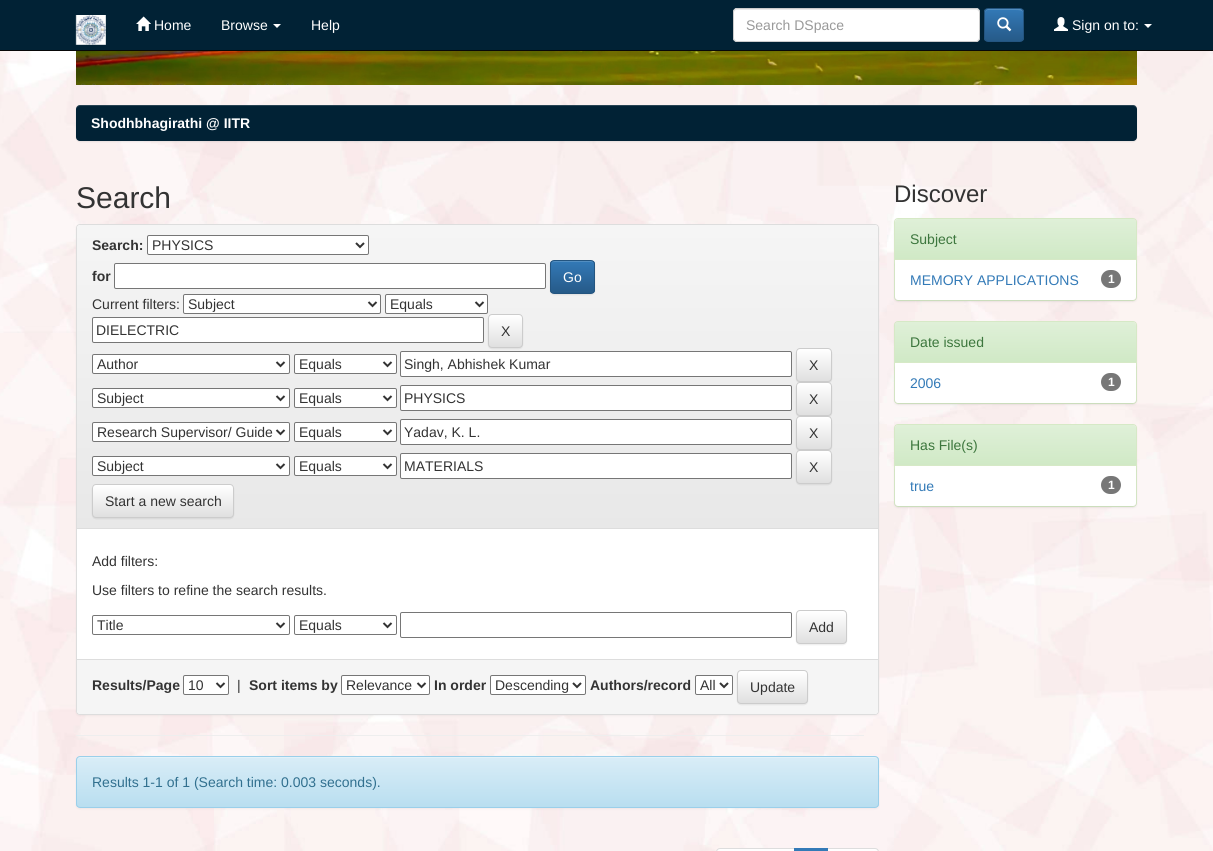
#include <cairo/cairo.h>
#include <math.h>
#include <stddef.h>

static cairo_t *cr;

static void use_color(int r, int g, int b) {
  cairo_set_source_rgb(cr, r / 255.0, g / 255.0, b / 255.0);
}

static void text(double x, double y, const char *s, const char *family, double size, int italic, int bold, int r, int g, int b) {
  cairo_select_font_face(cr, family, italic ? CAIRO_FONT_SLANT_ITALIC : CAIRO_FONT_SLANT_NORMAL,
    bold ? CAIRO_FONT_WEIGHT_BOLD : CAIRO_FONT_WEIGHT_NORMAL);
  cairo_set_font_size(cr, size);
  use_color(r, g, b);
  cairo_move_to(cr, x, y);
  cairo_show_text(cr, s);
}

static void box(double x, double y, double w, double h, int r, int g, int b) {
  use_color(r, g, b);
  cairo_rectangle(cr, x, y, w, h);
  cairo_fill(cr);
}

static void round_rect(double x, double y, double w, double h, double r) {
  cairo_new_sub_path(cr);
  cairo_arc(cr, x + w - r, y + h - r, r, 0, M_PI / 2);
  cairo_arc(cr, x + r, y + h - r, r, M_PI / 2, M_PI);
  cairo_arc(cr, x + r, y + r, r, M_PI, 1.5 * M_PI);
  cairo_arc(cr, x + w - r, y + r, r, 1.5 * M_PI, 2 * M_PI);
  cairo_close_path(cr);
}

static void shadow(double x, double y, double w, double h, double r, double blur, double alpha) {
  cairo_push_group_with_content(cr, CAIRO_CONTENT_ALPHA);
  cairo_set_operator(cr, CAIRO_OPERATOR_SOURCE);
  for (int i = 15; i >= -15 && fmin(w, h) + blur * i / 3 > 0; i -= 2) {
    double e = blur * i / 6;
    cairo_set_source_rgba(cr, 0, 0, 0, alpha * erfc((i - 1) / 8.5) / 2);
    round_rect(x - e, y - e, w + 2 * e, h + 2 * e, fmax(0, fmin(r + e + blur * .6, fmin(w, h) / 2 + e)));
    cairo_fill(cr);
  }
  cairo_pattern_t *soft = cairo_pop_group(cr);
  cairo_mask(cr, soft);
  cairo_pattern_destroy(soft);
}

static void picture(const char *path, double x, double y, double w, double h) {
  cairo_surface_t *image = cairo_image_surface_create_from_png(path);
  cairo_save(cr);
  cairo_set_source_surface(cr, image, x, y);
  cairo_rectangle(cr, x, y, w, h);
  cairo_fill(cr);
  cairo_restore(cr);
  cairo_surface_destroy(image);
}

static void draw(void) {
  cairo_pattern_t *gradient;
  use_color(255, 255, 255);
  cairo_paint(cr);
  picture("img_01.png", 0, 51, 1213, 800);
  box(0, 0, 1213, 50, 1, 34, 53);
  box(0, 50, 1213, 1, 8, 8, 8);
  picture("img_02.png", 75, 15, 31, 30);
  picture("img_03.png", 136, 16, 15, 15);
  use_color(255, 255, 255);
  cairo_new_path(cr);
  cairo_move_to(cr, 273, 24);
  cairo_line_to(cr, 281, 24);
  cairo_line_to(cr, 277, 28);
  cairo_close_path(cr);
  cairo_fill(cr);
  round_rect(733, 8, 247, 34, 4);
  cairo_fill(cr);
  use_color(236, 236, 236);
  cairo_new_path(cr);
  cairo_move_to(cr, 737, 10);
  cairo_line_to(cr, 977, 10);
  cairo_line_to(cr, 979, 11);
  cairo_line_to(cr, 979, 13);
  cairo_curve_to(cr, 979, 11, 978, 9, 976, 9);
  cairo_line_to(cr, 737, 9);
  cairo_curve_to(cr, 735, 9, 734, 11, 734, 13);
  cairo_curve_to(cr, 734, 11, 735, 10, 737, 10);
  cairo_close_path(cr);
  cairo_fill(cr);
  round_rect(733.5, 8.5, 246, 33, 3.5);
  use_color(204, 204, 204);
  cairo_set_line_width(cr, 1);
  cairo_stroke(cr);
  cairo_save(cr);
  round_rect(984, 8, 40, 34, 4);
  cairo_clip(cr);
  gradient = cairo_pattern_create_linear(1004, 9, 1004, 41);
  cairo_pattern_add_color_stop_rgba(gradient, 0, 0.2, 0.478, 0.718, 1);
  cairo_pattern_add_color_stop_rgba(gradient, 1, 0.149, 0.353, 0.533, 1);
  cairo_set_source(cr, gradient);
  cairo_pattern_destroy(gradient);
  cairo_rectangle(cr, 984, 9, 40, 32);
  cairo_fill(cr);
  cairo_restore(cr);
  use_color(82, 142, 193);
  cairo_new_path(cr);
  cairo_move_to(cr, 988, 10);
  cairo_line_to(cr, 1015, 10);
  cairo_curve_to(cr, 1020.5, 10, 1022.5, 10.5, 1023, 12.5);
  cairo_curve_to(cr, 1023, 7.5, 1018.5, 9, 1014.5, 9);
  cairo_line_to(cr, 993.5, 9);
  cairo_curve_to(cr, 990, 9, 985, 8, 985, 12.5);
  cairo_curve_to(cr, 985.5, 11, 986.5, 10, 988, 10);
  cairo_close_path(cr);
  cairo_fill(cr);
  round_rect(984.5, 8.5, 39, 33, 3.5);
  use_color(36, 85, 128);
  cairo_stroke(cr);
  picture("img_04.png", 997, 17, 15, 15);
  picture("img_05.png", 1054, 17, 14, 14);
  use_color(255, 255, 255);
  cairo_new_path(cr);
  cairo_move_to(cr, 1144, 24);
  cairo_line_to(cr, 1152, 24);
  cairo_line_to(cr, 1148, 28);
  cairo_close_path(cr);
  cairo_fill(cr);
  picture("img_06.png", 76, 51, 1061, 34);
  use_color(0, 0, 0);
  shadow(76, 106, 1061, 36, 4, 0.5, 0.07);
  use_color(1, 34, 53);
  round_rect(76, 105, 1061, 36, 4);
  cairo_fill(cr);
  cairo_set_source_rgba(cr, 1, 1, 1, 0.15);
  cairo_new_path(cr);
  cairo_move_to(cr, 80, 106);
  cairo_line_to(cr, 1133, 106);
  cairo_curve_to(cr, 1135, 106, 1137, 108, 1137, 110);
  cairo_curve_to(cr, 1137, 107, 1136, 105, 1133, 105);
  cairo_line_to(cr, 80, 105);
  cairo_curve_to(cr, 77, 105, 76, 107, 76, 110);
  cairo_curve_to(cr, 76, 108, 78, 106, 80, 106);
  cairo_close_path(cr);
  cairo_fill(cr);
  use_color(0, 0, 0);
  shadow(76, 225, 803, 491, 4, 1, 0.05);
  use_color(255, 255, 255);
  round_rect(76.5, 224.5, 802, 490, 3.5);
  cairo_fill_preserve(cr);
  use_color(221, 221, 221);
  cairo_stroke(cr);
  gradient = cairo_pattern_create_linear(478, 225, 478, 528);
  cairo_pattern_add_color_stop_rgba(gradient, 0, 0.961, 0.961, 0.961, 1);
  cairo_pattern_add_color_stop_rgba(gradient, 1, 0.91, 0.91, 0.91, 1);
  cairo_set_source(cr, gradient);
  cairo_pattern_destroy(gradient);
  cairo_new_path(cr);
  cairo_move_to(cr, 80, 225);
  cairo_line_to(cr, 875, 225);
  cairo_curve_to(cr, 876.5, 225, 878, 226.5, 878, 228);
  cairo_line_to(cr, 878, 528);
  cairo_line_to(cr, 77, 528);
  cairo_line_to(cr, 77, 228);
  cairo_curve_to(cr, 77, 226.5, 78.5, 225, 80, 225);
  cairo_close_path(cr);
  cairo_fill(cr);
  box(77, 528, 801, 1, 221, 221, 221);
  use_color(255, 255, 255);
  round_rect(147.5, 235.5, 221, 19, 1.5);
  cairo_fill_preserve(cr);
  use_color(118, 118, 118);
  cairo_stroke(cr);
  cairo_new_path(cr);
  cairo_move_to(cr, 356, 243);
  cairo_line_to(cr, 360, 247);
  cairo_line_to(cr, 364, 243);
  use_color(51, 51, 51);
  cairo_set_line_width(cr, 2);
  cairo_stroke(cr);
  use_color(255, 255, 255);
  round_rect(114.5, 263.5, 431, 25, 1.5);
  cairo_fill_preserve(cr);
  use_color(118, 118, 118);
  cairo_set_line_width(cr, 1);
  cairo_stroke(cr);
  use_color(0, 0, 0);
  shadow(550, 261, 45, 34, 4, 0.5, 0.07);
  cairo_save(cr);
  round_rect(550, 260, 45, 34, 4);
  cairo_clip(cr);
  gradient = cairo_pattern_create_linear(573, 261, 573, 293);
  cairo_pattern_add_color_stop_rgba(gradient, 0, 0.2, 0.478, 0.718, 1);
  cairo_pattern_add_color_stop_rgba(gradient, 1, 0.149, 0.353, 0.533, 1);
  cairo_set_source(cr, gradient);
  cairo_pattern_destroy(gradient);
  cairo_rectangle(cr, 550, 261, 45, 32);
  cairo_fill(cr);
  cairo_restore(cr);
  use_color(82, 142, 193);
  cairo_new_path(cr);
  cairo_move_to(cr, 554, 262);
  cairo_line_to(cr, 591, 262);
  cairo_curve_to(cr, 593, 262, 594, 263, 594, 265);
  cairo_curve_to(cr, 594, 260, 589, 261, 585, 261);
  cairo_line_to(cr, 560, 261);
  cairo_curve_to(cr, 556, 261, 551, 260, 551, 265);
  cairo_curve_to(cr, 551, 263, 552, 262, 554, 262);
  cairo_close_path(cr);
  cairo_fill(cr);
  round_rect(550.5, 260.5, 44, 33, 3.5);
  use_color(36, 85, 128);
  cairo_stroke(cr);
  use_color(255, 255, 255);
  round_rect(183.5, 294.5, 197, 19, 1.5);
  cairo_fill_preserve(cr);
  use_color(118, 118, 118);
  cairo_stroke(cr);
  cairo_new_path(cr);
  cairo_move_to(cr, 368.5, 302);
  cairo_line_to(cr, 372.5, 306);
  cairo_line_to(cr, 376.5, 302);
  use_color(51, 51, 51);
  cairo_set_line_width(cr, 2);
  cairo_stroke(cr);
  use_color(255, 255, 255);
  round_rect(385.5, 294.5, 102, 19, 1.5);
  cairo_fill_preserve(cr);
  use_color(118, 118, 118);
  cairo_set_line_width(cr, 1);
  cairo_stroke(cr);
  cairo_new_path(cr);
  cairo_move_to(cr, 475.5, 302);
  cairo_line_to(cr, 479.5, 306);
  cairo_line_to(cr, 483.5, 302);
  use_color(51, 51, 51);
  cairo_set_line_width(cr, 2);
  cairo_stroke(cr);
  use_color(255, 255, 255);
  round_rect(92.5, 317.5, 391, 25, 1.5);
  cairo_fill_preserve(cr);
  use_color(118, 118, 118);
  cairo_set_line_width(cr, 1);
  cairo_stroke(cr);
  use_color(255, 255, 255);
  round_rect(400.5, 351.5, 391, 25, 1.5);
  cairo_fill_preserve(cr);
  use_color(118, 118, 118);
  cairo_stroke(cr);
  use_color(0, 0, 0);
  shadow(488, 315, 35, 34, 4, 0.5, 0.07);
  cairo_save(cr);
  round_rect(488, 314, 35, 34, 4);
  cairo_clip(cr);
  gradient = cairo_pattern_create_linear(506, 315, 506, 347);
  cairo_pattern_add_color_stop_rgba(gradient, 0, 1, 1, 1, 1);
  cairo_pattern_add_color_stop_rgba(gradient, 1, 0.878, 0.878, 0.878, 1);
  cairo_set_source(cr, gradient);
  cairo_pattern_destroy(gradient);
  cairo_rectangle(cr, 488, 315, 35, 32);
  cairo_fill(cr);
  cairo_restore(cr);
  round_rect(488.5, 314.5, 34, 33, 3.5);
  use_color(204, 204, 204);
  cairo_stroke(cr);
  use_color(255, 255, 255);
  round_rect(92.5, 354.5, 197, 19, 1.5);
  cairo_fill_preserve(cr);
  use_color(118, 118, 118);
  cairo_stroke(cr);
  cairo_new_path(cr);
  cairo_move_to(cr, 276.5, 362);
  cairo_line_to(cr, 280.5, 366);
  cairo_line_to(cr, 284.5, 362);
  use_color(51, 51, 51);
  cairo_set_line_width(cr, 2);
  cairo_stroke(cr);
  use_color(255, 255, 255);
  round_rect(294.5, 354.5, 102, 19, 1.5);
  cairo_fill_preserve(cr);
  use_color(118, 118, 118);
  cairo_set_line_width(cr, 1);
  cairo_stroke(cr);
  cairo_new_path(cr);
  cairo_move_to(cr, 383.5, 362);
  cairo_line_to(cr, 387.5, 366);
  cairo_line_to(cr, 391.5, 362);
  use_color(51, 51, 51);
  cairo_set_line_width(cr, 2);
  cairo_stroke(cr);
  use_color(0, 0, 0);
  shadow(796, 349, 36, 34, 4, 0.5, 0.07);
  cairo_save(cr);
  round_rect(796, 348, 36, 34, 4);
  cairo_clip(cr);
  gradient = cairo_pattern_create_linear(814, 349, 814, 381);
  cairo_pattern_add_color_stop_rgba(gradient, 0, 1, 1, 1, 1);
  cairo_pattern_add_color_stop_rgba(gradient, 1, 0.878, 0.878, 0.878, 1);
  cairo_set_source(cr, gradient);
  cairo_pattern_destroy(gradient);
  cairo_rectangle(cr, 796, 349, 36, 32);
  cairo_fill(cr);
  cairo_restore(cr);
  round_rect(796.5, 348.5, 35, 33, 3.5);
  use_color(204, 204, 204);
  cairo_set_line_width(cr, 1);
  cairo_stroke(cr);
  use_color(255, 255, 255);
  round_rect(92.5, 388.5, 197, 19, 1.5);
  cairo_fill_preserve(cr);
  use_color(118, 118, 118);
  cairo_stroke(cr);
  cairo_new_path(cr);
  cairo_move_to(cr, 276.5, 396);
  cairo_line_to(cr, 280.5, 400);
  cairo_line_to(cr, 284.5, 396);
  use_color(51, 51, 51);
  cairo_set_line_width(cr, 2);
  cairo_stroke(cr);
  use_color(255, 255, 255);
  round_rect(294.5, 388.5, 102, 19, 1.5);
  cairo_fill_preserve(cr);
  use_color(118, 118, 118);
  cairo_set_line_width(cr, 1);
  cairo_stroke(cr);
  cairo_new_path(cr);
  cairo_move_to(cr, 383.5, 396);
  cairo_line_to(cr, 387.5, 400);
  cairo_line_to(cr, 391.5, 396);
  use_color(51, 51, 51);
  cairo_set_line_width(cr, 2);
  cairo_stroke(cr);
  use_color(255, 255, 255);
  round_rect(400.5, 385.5, 391, 25, 1.5);
  cairo_fill_preserve(cr);
  use_color(118, 118, 118);
  cairo_set_line_width(cr, 1);
  cairo_stroke(cr);
  use_color(0, 0, 0);
  shadow(796, 383, 36, 34, 4, 0.5, 0.07);
  cairo_save(cr);
  round_rect(796, 382, 36, 34, 4);
  cairo_clip(cr);
  gradient = cairo_pattern_create_linear(814, 383, 814, 415);
  cairo_pattern_add_color_stop_rgba(gradient, 0, 1, 1, 1, 1);
  cairo_pattern_add_color_stop_rgba(gradient, 1, 0.878, 0.878, 0.878, 1);
  cairo_set_source(cr, gradient);
  cairo_pattern_destroy(gradient);
  cairo_rectangle(cr, 796, 383, 36, 32);
  cairo_fill(cr);
  cairo_restore(cr);
  round_rect(796.5, 382.5, 35, 33, 3.5);
  use_color(204, 204, 204);
  cairo_stroke(cr);
  use_color(255, 255, 255);
  round_rect(92.5, 422.5, 197, 19, 1.5);
  cairo_fill_preserve(cr);
  use_color(118, 118, 118);
  cairo_stroke(cr);
  cairo_new_path(cr);
  cairo_move_to(cr, 276.5, 430);
  cairo_line_to(cr, 280.5, 434);
  cairo_line_to(cr, 284.5, 430);
  use_color(51, 51, 51);
  cairo_set_line_width(cr, 2);
  cairo_stroke(cr);
  use_color(255, 255, 255);
  round_rect(294.5, 422.5, 102, 19, 1.5);
  cairo_fill_preserve(cr);
  use_color(118, 118, 118);
  cairo_set_line_width(cr, 1);
  cairo_stroke(cr);
  cairo_new_path(cr);
  cairo_move_to(cr, 383.5, 430);
  cairo_line_to(cr, 387.5, 434);
  cairo_line_to(cr, 391.5, 430);
  use_color(51, 51, 51);
  cairo_set_line_width(cr, 2);
  cairo_stroke(cr);
  use_color(255, 255, 255);
  round_rect(400.5, 419.5, 391, 25, 1.5);
  cairo_fill_preserve(cr);
  use_color(118, 118, 118);
  cairo_set_line_width(cr, 1);
  cairo_stroke(cr);
  use_color(0, 0, 0);
  shadow(796, 417, 36, 34, 4, 0.5, 0.07);
  cairo_save(cr);
  round_rect(796, 416, 36, 34, 4);
  cairo_clip(cr);
  gradient = cairo_pattern_create_linear(814, 417, 814, 449);
  cairo_pattern_add_color_stop_rgba(gradient, 0, 1, 1, 1, 1);
  cairo_pattern_add_color_stop_rgba(gradient, 1, 0.878, 0.878, 0.878, 1);
  cairo_set_source(cr, gradient);
  cairo_pattern_destroy(gradient);
  cairo_rectangle(cr, 796, 417, 36, 32);
  cairo_fill(cr);
  cairo_restore(cr);
  round_rect(796.5, 416.5, 35, 33, 3.5);
  use_color(204, 204, 204);
  cairo_stroke(cr);
  use_color(255, 255, 255);
  round_rect(92.5, 456.5, 197, 19, 1.5);
  cairo_fill_preserve(cr);
  use_color(118, 118, 118);
  cairo_stroke(cr);
  cairo_new_path(cr);
  cairo_move_to(cr, 276.5, 464);
  cairo_line_to(cr, 280.5, 468);
  cairo_line_to(cr, 284.5, 464);
  use_color(51, 51, 51);
  cairo_set_line_width(cr, 2);
  cairo_stroke(cr);
  use_color(255, 255, 255);
  round_rect(294.5, 456.5, 102, 19, 1.5);
  cairo_fill_preserve(cr);
  use_color(118, 118, 118);
  cairo_set_line_width(cr, 1);
  cairo_stroke(cr);
  cairo_new_path(cr);
  cairo_move_to(cr, 383.5, 464);
  cairo_line_to(cr, 387.5, 468);
  cairo_line_to(cr, 391.5, 464);
  use_color(51, 51, 51);
  cairo_set_line_width(cr, 2);
  cairo_stroke(cr);
  use_color(255, 255, 255);
  round_rect(400.5, 453.5, 391, 25, 1.5);
  cairo_fill_preserve(cr);
  use_color(118, 118, 118);
  cairo_set_line_width(cr, 1);
  cairo_stroke(cr);
  use_color(0, 0, 0);
  shadow(796, 451, 36, 34, 4, 0.5, 0.07);
  cairo_save(cr);
  round_rect(796, 450, 36, 34, 4);
  cairo_clip(cr);
  gradient = cairo_pattern_create_linear(814, 451, 814, 483);
  cairo_pattern_add_color_stop_rgba(gradient, 0, 1, 1, 1, 1);
  cairo_pattern_add_color_stop_rgba(gradient, 1, 0.878, 0.878, 0.878, 1);
  cairo_set_source(cr, gradient);
  cairo_pattern_destroy(gradient);
  cairo_rectangle(cr, 796, 451, 36, 32);
  cairo_fill(cr);
  cairo_restore(cr);
  round_rect(796.5, 450.5, 35, 33, 3.5);
  use_color(204, 204, 204);
  cairo_stroke(cr);
  use_color(0, 0, 0);
  shadow(92, 485, 142, 34, 4, 0.5, 0.07);
  cairo_save(cr);
  round_rect(92, 484, 142, 34, 4);
  cairo_clip(cr);
  gradient = cairo_pattern_create_linear(163, 485, 163, 517);
  cairo_pattern_add_color_stop_rgba(gradient, 0, 1, 1, 1, 1);
  cairo_pattern_add_color_stop_rgba(gradient, 1, 0.878, 0.878, 0.878, 1);
  cairo_set_source(cr, gradient);
  cairo_pattern_destroy(gradient);
  cairo_rectangle(cr, 92, 485, 142, 32);
  cairo_fill(cr);
  cairo_restore(cr);
  round_rect(92.5, 484.5, 141, 33, 3.5);
  use_color(204, 204, 204);
  cairo_stroke(cr);
  round_rect(92.5, 615.5, 197, 19, 1.5);
  use_color(118, 118, 118);
  cairo_stroke(cr);
  cairo_new_path(cr);
  cairo_move_to(cr, 276.5, 623);
  cairo_line_to(cr, 280.5, 627);
  cairo_line_to(cr, 284.5, 623);
  use_color(51, 51, 51);
  cairo_set_line_width(cr, 2);
  cairo_stroke(cr);
  round_rect(294.5, 615.5, 102, 19, 1.5);
  use_color(118, 118, 118);
  cairo_set_line_width(cr, 1);
  cairo_stroke(cr);
  cairo_new_path(cr);
  cairo_move_to(cr, 383.5, 623);
  cairo_line_to(cr, 387.5, 627);
  cairo_line_to(cr, 391.5, 623);
  use_color(51, 51, 51);
  cairo_set_line_width(cr, 2);
  cairo_stroke(cr);
  round_rect(400.5, 612.5, 391, 25, 1.5);
  use_color(118, 118, 118);
  cairo_set_line_width(cr, 1);
  cairo_stroke(cr);
  use_color(0, 0, 0);
  shadow(796, 611, 51, 34, 4, 0.5, 0.07);
  cairo_save(cr);
  round_rect(796, 610, 51, 34, 4);
  cairo_clip(cr);
  gradient = cairo_pattern_create_linear(822, 611, 822, 643);
  cairo_pattern_add_color_stop_rgba(gradient, 0, 1, 1, 1, 1);
  cairo_pattern_add_color_stop_rgba(gradient, 1, 0.878, 0.878, 0.878, 1);
  cairo_set_source(cr, gradient);
  cairo_pattern_destroy(gradient);
  cairo_rectangle(cr, 796, 611, 51, 32);
  cairo_fill(cr);
  cairo_restore(cr);
  round_rect(796.5, 610.5, 50, 33, 3.5);
  use_color(204, 204, 204);
  cairo_stroke(cr);
  use_color(245, 245, 245);
  cairo_new_path(cr);
  cairo_move_to(cr, 77, 659);
  cairo_line_to(cr, 878, 659);
  cairo_line_to(cr, 878, 711);
  cairo_curve_to(cr, 878, 712.5, 876.5, 714, 875, 714);
  cairo_line_to(cr, 80, 714);
  cairo_curve_to(cr, 78.5, 714, 77, 712.5, 77, 711);
  cairo_close_path(cr);
  cairo_fill(cr);
  box(77, 659, 801, 1, 221, 221, 221);
  use_color(255, 255, 255);
  round_rect(183.5, 675.5, 45, 19, 1.5);
  cairo_fill_preserve(cr);
  use_color(118, 118, 118);
  cairo_stroke(cr);
  cairo_new_path(cr);
  cairo_move_to(cr, 216.5, 683);
  cairo_line_to(cr, 220.5, 687);
  cairo_line_to(cr, 224.5, 683);
  use_color(51, 51, 51);
  cairo_set_line_width(cr, 2);
  cairo_stroke(cr);
  use_color(255, 255, 255);
  round_rect(341.5, 675.5, 88, 19, 1.5);
  cairo_fill_preserve(cr);
  use_color(118, 118, 118);
  cairo_set_line_width(cr, 1);
  cairo_stroke(cr);
  cairo_new_path(cr);
  cairo_move_to(cr, 417.5, 683);
  cairo_line_to(cr, 421.5, 687);
  cairo_line_to(cr, 425.5, 683);
  use_color(51, 51, 51);
  cairo_set_line_width(cr, 2);
  cairo_stroke(cr);
  use_color(255, 255, 255);
  round_rect(490.5, 675.5, 95, 19, 1.5);
  cairo_fill_preserve(cr);
  use_color(118, 118, 118);
  cairo_set_line_width(cr, 1);
  cairo_stroke(cr);
  cairo_new_path(cr);
  cairo_move_to(cr, 573, 683);
  cairo_line_to(cr, 577, 687);
  cairo_line_to(cr, 581, 683);
  use_color(51, 51, 51);
  cairo_set_line_width(cr, 2);
  cairo_stroke(cr);
  use_color(255, 255, 255);
  round_rect(695.5, 675.5, 37, 19, 1.5);
  cairo_fill_preserve(cr);
  use_color(118, 118, 118);
  cairo_set_line_width(cr, 1);
  cairo_stroke(cr);
  cairo_new_path(cr);
  cairo_move_to(cr, 720, 683);
  cairo_line_to(cr, 724, 687);
  cairo_line_to(cr, 728, 683);
  use_color(51, 51, 51);
  cairo_set_line_width(cr, 2);
  cairo_stroke(cr);
  use_color(0, 0, 0);
  shadow(737, 671, 71, 34, 4, 0.5, 0.07);
  cairo_save(cr);
  round_rect(737, 670, 71, 34, 4);
  cairo_clip(cr);
  gradient = cairo_pattern_create_linear(773, 671, 773, 703);
  cairo_pattern_add_color_stop_rgba(gradient, 0, 1, 1, 1, 1);
  cairo_pattern_add_color_stop_rgba(gradient, 1, 0.878, 0.878, 0.878, 1);
  cairo_set_source(cr, gradient);
  cairo_pattern_destroy(gradient);
  cairo_rectangle(cr, 737, 671, 71, 32);
  cairo_fill(cr);
  cairo_restore(cr);
  round_rect(737.5, 670.5, 70, 33, 3.5);
  use_color(204, 204, 204);
  cairo_set_line_width(cr, 1);
  cairo_stroke(cr);
  box(76, 735, 788, 1, 238, 238, 238);
  use_color(0, 0, 0);
  shadow(76, 757, 803, 52, 4, 1, 0.05);
  cairo_save(cr);
  round_rect(76, 756, 803, 52, 4);
  cairo_clip(cr);
  gradient = cairo_pattern_create_linear(478, 757, 478, 807);
  cairo_pattern_add_color_stop_rgba(gradient, 0, 0.851, 0.929, 0.969, 1);
  cairo_pattern_add_color_stop_rgba(gradient, 1, 0.725, 0.871, 0.941, 1);
  cairo_set_source(cr, gradient);
  cairo_pattern_destroy(gradient);
  cairo_rectangle(cr, 76, 757, 803, 50);
  cairo_fill(cr);
  cairo_restore(cr);
  use_color(227, 242, 249);
  cairo_new_path(cr);
  cairo_move_to(cr, 80, 758);
  cairo_line_to(cr, 875, 758);
  cairo_curve_to(cr, 877, 758, 878, 759, 878, 761);
  cairo_curve_to(cr, 878, 759, 877, 757, 875, 757);
  cairo_line_to(cr, 80, 757);
  cairo_curve_to(cr, 78, 757, 77, 759, 77, 761);
  cairo_curve_to(cr, 77, 759, 78, 758, 80, 758);
  cairo_close_path(cr);
  cairo_fill(cr);
  round_rect(76.5, 756.5, 802, 51, 3.5);
  use_color(154, 207, 234);
  cairo_stroke(cr);
  use_color(255, 255, 255);
  cairo_new_path(cr);
  cairo_move_to(cr, 720, 848.5);
  cairo_line_to(cr, 794.5, 848.5);
  cairo_line_to(cr, 794.5, 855.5);
  cairo_line_to(cr, 720, 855.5);
  cairo_curve_to(cr, 718, 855.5, 716.5, 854, 716.5, 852);
  cairo_curve_to(cr, 716.5, 850, 718, 848.5, 720, 848.5);
  cairo_close_path(cr);
  cairo_fill_preserve(cr);
  use_color(221, 221, 221);
  cairo_stroke(cr);
  use_color(255, 255, 255);
  cairo_new_path(cr);
  cairo_move_to(cr, 827.5, 848.5);
  cairo_line_to(cr, 875, 848.5);
  cairo_curve_to(cr, 877, 848.5, 878.5, 850, 878.5, 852);
  cairo_curve_to(cr, 878.5, 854, 877, 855.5, 875, 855.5);
  cairo_line_to(cr, 827.5, 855.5);
  cairo_close_path(cr);
  cairo_fill_preserve(cr);
  use_color(221, 221, 221);
  cairo_stroke(cr);
  box(794, 848, 34, 3, 51, 122, 183);
  use_color(0, 0, 0);
  shadow(894, 219, 243, 83, 4, 1, 0.05);
  round_rect(894.5, 218.5, 242, 82, 3.5);
  use_color(214, 233, 198);
  cairo_stroke(cr);
  gradient = cairo_pattern_create_linear(1016, 219, 1016, 259);
  cairo_pattern_add_color_stop_rgba(gradient, 0, 0.875, 0.941, 0.847, 1);
  cairo_pattern_add_color_stop_rgba(gradient, 1, 0.816, 0.914, 0.776, 1);
  cairo_set_source(cr, gradient);
  cairo_pattern_destroy(gradient);
  cairo_new_path(cr);
  cairo_move_to(cr, 898, 219);
  cairo_line_to(cr, 1133, 219);
  cairo_curve_to(cr, 1134.5, 219, 1136, 220.5, 1136, 222);
  cairo_line_to(cr, 1136, 259);
  cairo_line_to(cr, 895, 259);
  cairo_line_to(cr, 895, 222);
  cairo_curve_to(cr, 895, 220.5, 896.5, 219, 898, 219);
  cairo_close_path(cr);
  cairo_fill(cr);
  box(895, 259, 241, 1, 214, 233, 198);
  use_color(0, 0, 0);
  shadow(895, 261, 241, 40, 4, 1, 0.07);
  use_color(255, 255, 255);
  cairo_new_path(cr);
  cairo_move_to(cr, 895, 260);
  cairo_line_to(cr, 1136, 260);
  cairo_line_to(cr, 1136, 297);
  cairo_curve_to(cr, 1136, 298.5, 1134.5, 300, 1133, 300);
  cairo_line_to(cr, 898, 300);
  cairo_curve_to(cr, 896.5, 300, 895, 298.5, 895, 297);
  cairo_close_path(cr);
  cairo_fill(cr);
  use_color(119, 119, 119);
  round_rect(1101, 270, 20, 18, 9);
  cairo_fill(cr);
  use_color(0, 0, 0);
  shadow(894, 322, 243, 83, 4, 1, 0.05);
  round_rect(894.5, 321.5, 242, 82, 3.5);
  use_color(214, 233, 198);
  cairo_stroke(cr);
  gradient = cairo_pattern_create_linear(1016, 322, 1016, 362);
  cairo_pattern_add_color_stop_rgba(gradient, 0, 0.875, 0.941, 0.847, 1);
  cairo_pattern_add_color_stop_rgba(gradient, 1, 0.816, 0.914, 0.776, 1);
  cairo_set_source(cr, gradient);
  cairo_pattern_destroy(gradient);
  cairo_new_path(cr);
  cairo_move_to(cr, 898, 322);
  cairo_line_to(cr, 1133, 322);
  cairo_curve_to(cr, 1134.5, 322, 1136, 323.5, 1136, 325);
  cairo_line_to(cr, 1136, 362);
  cairo_line_to(cr, 895, 362);
  cairo_line_to(cr, 895, 325);
  cairo_curve_to(cr, 895, 323.5, 896.5, 322, 898, 322);
  cairo_close_path(cr);
  cairo_fill(cr);
  box(895, 362, 241, 1, 214, 233, 198);
  use_color(0, 0, 0);
  shadow(895, 364, 241, 40, 4, 1, 0.07);
  use_color(255, 255, 255);
  cairo_new_path(cr);
  cairo_move_to(cr, 895, 363);
  cairo_line_to(cr, 1136, 363);
  cairo_line_to(cr, 1136, 400);
  cairo_curve_to(cr, 1136, 401.5, 1134.5, 403, 1133, 403);
  cairo_line_to(cr, 898, 403);
  cairo_curve_to(cr, 896.5, 403, 895, 401.5, 895, 400);
  cairo_close_path(cr);
  cairo_fill(cr);
  use_color(119, 119, 119);
  round_rect(1101, 373, 20, 18, 9);
  cairo_fill(cr);
  use_color(0, 0, 0);
  shadow(894, 425, 243, 83, 4, 1, 0.05);
  round_rect(894.5, 424.5, 242, 82, 3.5);
  use_color(214, 233, 198);
  cairo_stroke(cr);
  gradient = cairo_pattern_create_linear(1016, 425, 1016, 465);
  cairo_pattern_add_color_stop_rgba(gradient, 0, 0.875, 0.941, 0.847, 1);
  cairo_pattern_add_color_stop_rgba(gradient, 1, 0.816, 0.914, 0.776, 1);
  cairo_set_source(cr, gradient);
  cairo_pattern_destroy(gradient);
  cairo_new_path(cr);
  cairo_move_to(cr, 898, 425);
  cairo_line_to(cr, 1133, 425);
  cairo_curve_to(cr, 1134.5, 425, 1136, 426.5, 1136, 428);
  cairo_line_to(cr, 1136, 465);
  cairo_line_to(cr, 895, 465);
  cairo_line_to(cr, 895, 428);
  cairo_curve_to(cr, 895, 426.5, 896.5, 425, 898, 425);
  cairo_close_path(cr);
  cairo_fill(cr);
  box(895, 465, 241, 1, 214, 233, 198);
  use_color(0, 0, 0);
  shadow(895, 467, 241, 40, 4, 1, 0.07);
  use_color(255, 255, 255);
  cairo_new_path(cr);
  cairo_move_to(cr, 895, 466);
  cairo_line_to(cr, 1136, 466);
  cairo_line_to(cr, 1136, 503);
  cairo_curve_to(cr, 1136, 504.5, 1134.5, 506, 1133, 506);
  cairo_line_to(cr, 898, 506);
  cairo_curve_to(cr, 896.5, 506, 895, 504.5, 895, 503);
  cairo_close_path(cr);
  cairo_fill(cr);
  use_color(119, 119, 119);
  round_rect(1101, 476, 20, 18, 9);
  cairo_fill(cr);
  text(154, 30, "Home", "Liberation Sans", 14, 0, 0, 255, 255, 255);
  text(221, 30, "Browse", "Liberation Sans", 14, 0, 0, 255, 255, 255);
  text(311, 30, "Help", "Liberation Sans", 14, 0, 0, 255, 255, 255);
  text(746, 30, "Search DSpace", "Liberation Sans", 14, 0, 0, 153, 153, 153);
  text(1072, 30, "Sign on to:", "Liberation Sans", 14, 0, 0, 255, 255, 255);
  text(91, 128, "Shodhbhagirathi @ IITR", "Liberation Sans", 14, 0, 1, 255, 255, 255);
  text(76, 208, "Search", "Liberation Sans", 30, 0, 0, 51, 51, 51);
  text(92, 250, "Search:", "Liberation Sans", 14, 0, 1, 51, 51, 51);
  text(152, 250, "PHYSICS", "Liberation Sans", 14, 0, 0, 51, 51, 51);
  text(92, 281, "for", "Liberation Sans", 14, 0, 1, 51, 51, 51);
  text(563, 282, "Go", "Liberation Sans", 14, 0, 0, 255, 255, 255);
  text(92, 309, "Current filters:", "Liberation Sans", 14, 0, 0, 51, 51, 51);
  text(188, 309, "Subject", "Liberation Sans", 14, 0, 0, 51, 51, 51);
  text(390, 309, "Equals", "Liberation Sans", 14, 0, 0, 51, 51, 51);
  text(96, 335, "DIELECTRIC", "Liberation Sans", 14, 0, 0, 51, 51, 51);
  text(501, 336, "X", "Liberation Sans", 14, 0, 0, 51, 51, 51);
  text(97, 369, "Author", "Liberation Sans", 14, 0, 0, 51, 51, 51);
  text(299, 369, "Equals", "Liberation Sans", 14, 0, 0, 51, 51, 51);
  text(404, 369, "Singh, Abhishek Kumar", "Liberation Sans", 14, 0, 0, 51, 51, 51);
  text(809, 370, "X", "Liberation Sans", 14, 0, 0, 51, 51, 51);
  text(97, 403, "Subject", "Liberation Sans", 14, 0, 0, 51, 51, 51);
  text(299, 403, "Equals", "Liberation Sans", 14, 0, 0, 51, 51, 51);
  text(404, 403, "PHYSICS", "Liberation Sans", 14, 0, 0, 51, 51, 51);
  text(809, 404, "X", "Liberation Sans", 14, 0, 0, 51, 51, 51);
  text(97, 437, "Research Supervisor/ Guide", "Liberation Sans", 14, 0, 0, 51, 51, 51);
  text(299, 437, "Equals", "Liberation Sans", 14, 0, 0, 51, 51, 51);
  text(404, 437, "Yadav, K. L.", "Liberation Sans", 14, 0, 0, 51, 51, 51);
  text(809, 438, "X", "Liberation Sans", 14, 0, 0, 51, 51, 51);
  text(97, 471, "Subject", "Liberation Sans", 14, 0, 0, 51, 51, 51);
  text(299, 471, "Equals", "Liberation Sans", 14, 0, 0, 51, 51, 51);
  text(404, 471, "MATERIALS", "Liberation Sans", 14, 0, 0, 51, 51, 51);
  text(809, 472, "X", "Liberation Sans", 14, 0, 0, 51, 51, 51);
  text(105, 506, "Start a new search", "Liberation Sans", 14, 0, 0, 51, 51, 51);
  text(92, 566, "Add filters:", "Liberation Sans", 14, 0, 0, 51, 51, 51);
  text(92, 595, "Use filters to refine the search results.", "Liberation Sans", 14, 0, 0, 51, 51, 51);
  text(97, 630, "Title", "Liberation Sans", 14, 0, 0, 51, 51, 51);
  text(299, 630, "Equals", "Liberation Sans", 14, 0, 0, 51, 51, 51);
  text(809, 632, "Add", "Liberation Sans", 14, 0, 0, 51, 51, 51);
  text(92, 690, "Results/Page", "Liberation Sans", 14, 0, 1, 51, 51, 51);
  text(188, 690, "10", "Liberation Sans", 14, 0, 0, 51, 51, 51);
  text(237, 690, "|", "Liberation Sans", 14, 0, 0, 51, 51, 51);
  text(249, 690, "Sort items by", "Liberation Sans", 14, 0, 1, 51, 51, 51);
  text(346, 690, "Relevance", "Liberation Sans", 14, 0, 0, 51, 51, 51);
  text(434, 690, "In order", "Liberation Sans", 14, 0, 1, 51, 51, 51);
  text(495, 690, "Descending", "Liberation Sans", 14, 0, 0, 51, 51, 51);
  text(590, 690, "Authors/record", "Liberation Sans", 14, 0, 1, 51, 51, 51);
  text(700, 690, "All", "Liberation Sans", 14, 0, 0, 51, 51, 51);
  text(750, 692, "Update", "Liberation Sans", 14, 0, 0, 51, 51, 51);
  text(92, 787, "Results 1-1 of 1 (Search time: 0.003 seconds).", "Liberation Sans", 14, 0, 0, 49, 112, 143);
  text(894, 202, "Discover", "Liberation Sans", 24, 0, 0, 51, 51, 51);
  text(910, 244, "Subject", "Liberation Sans", 14, 0, 0, 60, 118, 61);
  text(910, 285, "MEMORY APPLICATIONS", "Liberation Sans", 14, 0, 0, 51, 122, 183);
  text(1108, 283, "1", "Liberation Sans", 12, 0, 1, 255, 255, 255);
  text(910, 347, "Date issued", "Liberation Sans", 14, 0, 0, 60, 118, 61);
  text(910, 388, "2006", "Liberation Sans", 14, 0, 0, 51, 122, 183);
  text(1108, 386, "1", "Liberation Sans", 12, 0, 1, 255, 255, 255);
  text(910, 450, "Has File(s)", "Liberation Sans", 14, 0, 0, 60, 118, 61);
  text(910, 491, "true", "Liberation Sans", 14, 0, 0, 51, 122, 183);
  text(1108, 489, "1", "Liberation Sans", 12, 0, 1, 255, 255, 255);
}

int main(void) {
  cairo_surface_t *surface = cairo_image_surface_create(CAIRO_FORMAT_RGB24, 1213, 851);
  cr = cairo_create(surface);
  cairo_font_options_t *options = cairo_font_options_create();
  cairo_font_options_set_hint_metrics(options, CAIRO_HINT_METRICS_OFF);
  cairo_font_options_set_hint_style(options, CAIRO_HINT_STYLE_NONE);
  cairo_set_font_options(cr, options);
  cairo_set_miter_limit(cr, 4);
  draw();
  cairo_surface_write_to_png(surface, "out.png");
  cairo_font_options_destroy(options);
  cairo_destroy(cr);
  cairo_surface_destroy(surface);
  return 0;
}
